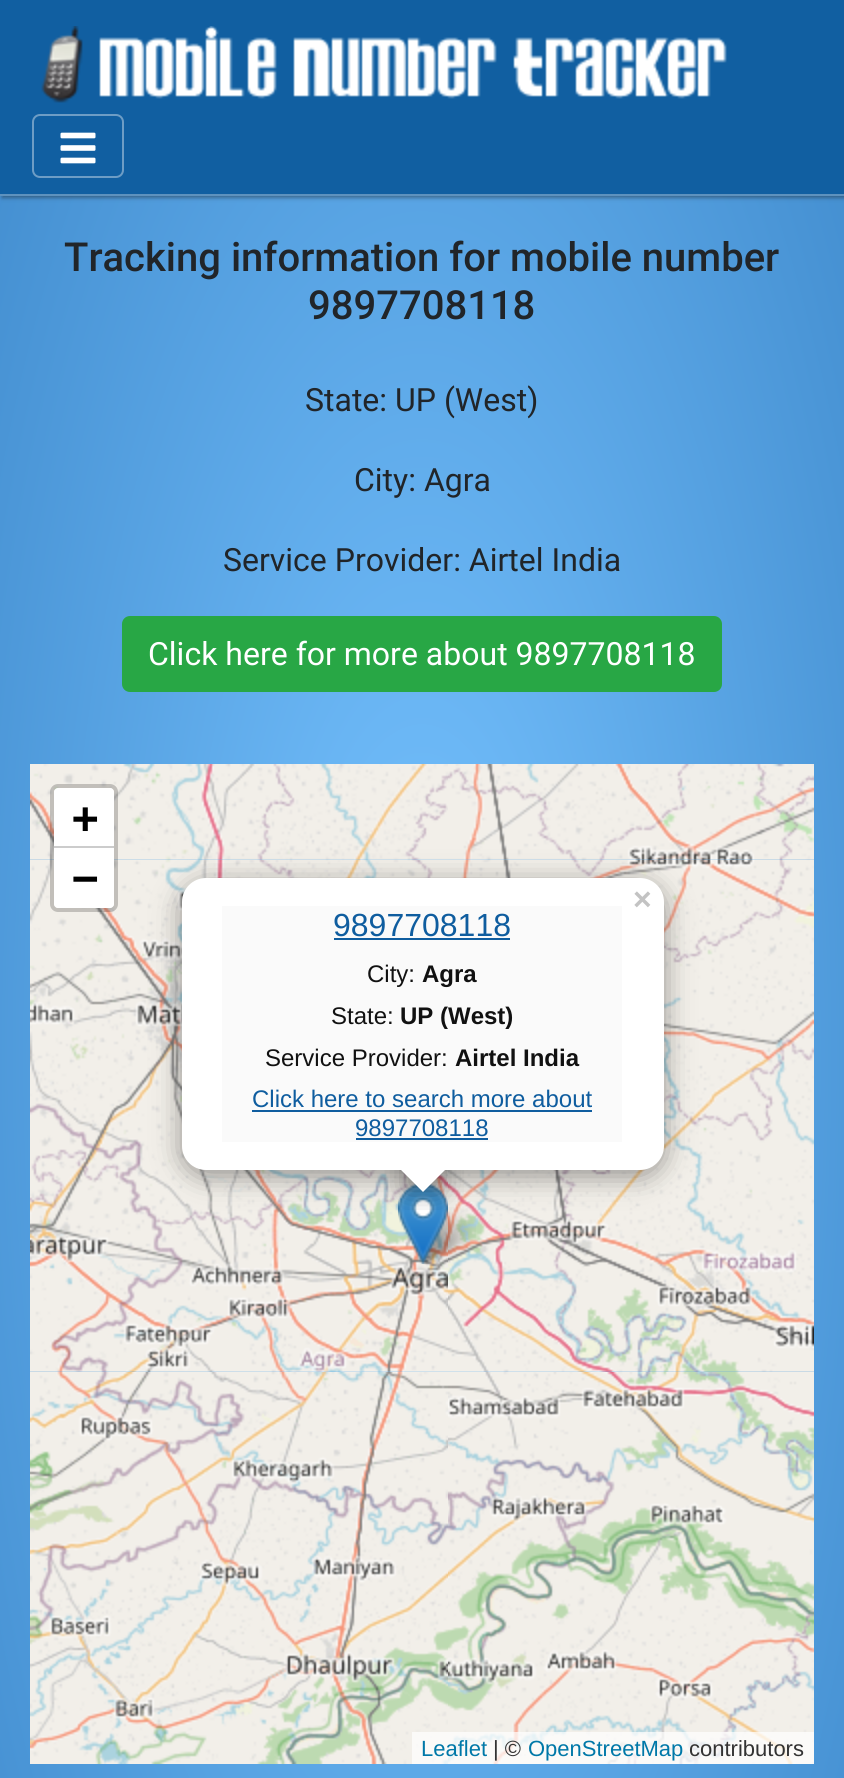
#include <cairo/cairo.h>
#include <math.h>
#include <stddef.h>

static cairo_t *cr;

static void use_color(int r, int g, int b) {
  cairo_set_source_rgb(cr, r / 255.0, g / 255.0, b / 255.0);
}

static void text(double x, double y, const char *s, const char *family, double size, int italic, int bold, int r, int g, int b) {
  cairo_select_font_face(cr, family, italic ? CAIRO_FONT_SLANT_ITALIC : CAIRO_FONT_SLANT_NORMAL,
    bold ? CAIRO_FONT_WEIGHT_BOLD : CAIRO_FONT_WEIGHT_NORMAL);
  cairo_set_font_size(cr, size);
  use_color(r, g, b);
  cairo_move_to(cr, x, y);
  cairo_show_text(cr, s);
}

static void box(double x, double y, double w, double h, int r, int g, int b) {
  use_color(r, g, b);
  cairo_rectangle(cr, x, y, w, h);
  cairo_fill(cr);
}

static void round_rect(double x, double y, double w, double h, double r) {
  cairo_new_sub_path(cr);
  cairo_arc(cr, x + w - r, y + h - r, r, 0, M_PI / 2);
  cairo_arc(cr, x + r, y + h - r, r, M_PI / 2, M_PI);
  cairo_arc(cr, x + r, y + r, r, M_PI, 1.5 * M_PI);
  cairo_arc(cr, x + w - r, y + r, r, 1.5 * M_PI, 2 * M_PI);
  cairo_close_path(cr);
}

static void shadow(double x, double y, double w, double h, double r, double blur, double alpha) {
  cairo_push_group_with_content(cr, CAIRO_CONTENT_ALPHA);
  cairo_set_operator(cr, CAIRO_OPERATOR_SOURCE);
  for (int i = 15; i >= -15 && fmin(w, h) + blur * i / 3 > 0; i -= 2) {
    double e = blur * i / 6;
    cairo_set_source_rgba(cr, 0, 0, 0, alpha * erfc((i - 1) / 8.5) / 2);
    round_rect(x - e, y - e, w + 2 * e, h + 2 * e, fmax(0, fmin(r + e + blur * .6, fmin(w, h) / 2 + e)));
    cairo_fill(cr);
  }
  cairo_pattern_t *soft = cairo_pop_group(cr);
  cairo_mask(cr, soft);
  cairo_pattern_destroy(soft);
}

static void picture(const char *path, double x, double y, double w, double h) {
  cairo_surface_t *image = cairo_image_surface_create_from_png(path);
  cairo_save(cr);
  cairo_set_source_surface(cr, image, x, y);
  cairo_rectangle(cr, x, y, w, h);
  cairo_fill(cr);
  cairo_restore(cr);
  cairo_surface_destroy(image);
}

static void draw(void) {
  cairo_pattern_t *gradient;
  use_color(255, 255, 255);
  cairo_paint(cr);
  gradient = cairo_pattern_create_radial(0, 0, 0, 0, 0, 1);
  cairo_pattern_set_matrix(gradient, &(cairo_matrix_t){1.0 / 597, 0, 0, 1.0 / 1612, -1.0 * 422 / 597, -1.0 * 1054 / 1612});
  cairo_pattern_add_color_stop_rgba(gradient, 0, 0.463, 0.761, 1, 1);
  cairo_pattern_add_color_stop_rgba(gradient, 1, 0.247, 0.541, 0.8, 1);
  cairo_set_source(cr, gradient);
  cairo_pattern_destroy(gradient);
  cairo_rectangle(cr, 0, 196, 844, 1582);
  cairo_fill(cr);
  use_color(20, 20, 20);
  shadow(2, 2, 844, 196, 0, 2, 0.4);
  box(0, 0, 844, 194, 17, 95, 161);
  box(0, 194, 844, 2, 94, 146, 190);
  picture("img_01.png", 41, 26, 686, 77);
  round_rect(33, 115, 90, 62, 7);
  use_color(110, 157, 197);
  cairo_stroke(cr);
  picture("img_02.png", 60, 132, 36, 32);
  use_color(40, 167, 69);
  round_rect(123, 617, 598, 74, 7);
  cairo_fill_preserve(cr);
  cairo_stroke(cr);
  picture("img_05.png", 30, 860, 418, 512);
  picture("img_03.png", 30, 764, 418, 97);
  round_rect(52, 786, 64, 124, 6);
  cairo_set_source_rgba(cr, 0, 0, 0, 0.2);
  cairo_set_line_width(cr, 4);
  cairo_stroke(cr);
  use_color(255, 255, 255);
  cairo_new_path(cr);
  cairo_move_to(cr, 58, 788);
  cairo_line_to(cr, 110, 788);
  cairo_curve_to(cr, 112, 788, 114, 790, 114, 792);
  cairo_line_to(cr, 114, 848);
  cairo_line_to(cr, 54, 848);
  cairo_line_to(cr, 54, 792);
  cairo_curve_to(cr, 54, 790, 56, 788, 58, 788);
  cairo_close_path(cr);
  cairo_fill(cr);
  box(54, 846, 60, 2, 204, 204, 204);
  use_color(255, 255, 255);
  cairo_new_path(cr);
  cairo_move_to(cr, 54, 848);
  cairo_line_to(cr, 114, 848);
  cairo_line_to(cr, 114, 904);
  cairo_curve_to(cr, 114, 906, 112, 908, 110, 908);
  cairo_line_to(cr, 58, 908);
  cairo_curve_to(cr, 56, 908, 54, 906, 54, 904);
  cairo_close_path(cr);
  cairo_fill(cr);
  picture("img_07.png", 30, 1372, 418, 392);
  picture("img_08.png", 448, 1372, 366, 392);
  cairo_set_source_rgba(cr, 1, 1, 1, 0.7);
  cairo_rectangle(cr, 412, 1732, 402, 32);
  cairo_fill(cr);
  picture("img_06.png", 448, 860, 366, 512);
  picture("img_04.png", 448, 764, 366, 97);
  picture("img_10.png", 416, 1207, 60, 57);
  picture("img_09.png", 398, 1183, 50, 81);
  use_color(0, 0, 0);
  shadow(182, 884, 482, 292, 24, 14, 0.4);
  use_color(255, 255, 255);
  round_rect(182, 878, 482, 292, 24);
  cairo_fill(cr);
  cairo_save(cr);
  cairo_rectangle(cr, 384, 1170, 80, 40);
  cairo_clip(cr);
  use_color(0, 0, 0);
  shadow(406, 1156, 34, 34, 0, 14, 0.4);
  cairo_restore(cr);
  box(222, 906, 400, 236, 250, 250, 250);
  box(334, 938, 176, 2, 15, 93, 159);
  box(252, 1110, 340, 2, 15, 93, 159);
  box(356, 1138, 132, 2, 15, 93, 159);
  cairo_save(cr);
  cairo_rectangle(cr, 384, 1170, 80, 40);
  cairo_clip(cr);
  use_color(255, 255, 255);
  cairo_new_path(cr);
  cairo_move_to(cr, 423, 1144);
  cairo_line_to(cr, 447, 1168);
  cairo_line_to(cr, 423, 1192);
  cairo_line_to(cr, 399, 1168);
  cairo_close_path(cr);
  cairo_fill(cr);
  cairo_restore(cr);
  text(64, 271, "Tracking information for mobile number", "Roboto Medium", 40, 0, 0, 33, 37, 41);
  text(308, 319, "9897708118", "Roboto Medium", 40, 0, 0, 33, 37, 41);
  text(305, 411, "State: UP (West)", "Roboto", 32, 0, 0, 33, 37, 41);
  text(354, 491, "City: Agra", "Roboto", 32, 0, 0, 33, 37, 41);
  text(223, 571, "Service Provider: Airtel India", "Roboto", 32, 0, 0, 33, 37, 41);
  text(148, 665, "Click here for more about 9897708118", "Roboto", 32, 0, 0, 255, 255, 255);
  text(72, 833, "+", "DejaVu Sans Mono", 44, 0, 1, 0, 0, 0);
  text(72, 893, "−", "DejaVu Sans Mono", 44, 0, 1, 0, 0, 0);
  text(421, 1756, "Leaflet", "Liberation Sans", 22, 0, 0, 0, 120, 168);
  text(493, 1756, "| ©", "Liberation Sans", 22, 0, 0, 51, 51, 51);
  text(528, 1756, "OpenStreetMap", "Liberation Sans", 22, 0, 0, 0, 120, 168);
  text(689, 1756, "contributors", "Liberation Sans", 22, 0, 0, 51, 51, 51);
  text(633, 910, "×", "Liberation Sans", 32, 0, 1, 195, 195, 195);
  text(333, 936, "9897708118", "Liberation Sans", 32, 0, 0, 15, 93, 159);
  text(367, 982, "City:", "Liberation Sans", 24, 0, 0, 17, 17, 17);
  text(422, 982, "Agra", "Liberation Sans", 24, 0, 1, 17, 17, 17);
  text(331, 1024, "State:", "Liberation Sans", 24, 0, 0, 17, 17, 17);
  text(400, 1024, "UP (West)", "Liberation Sans", 24, 0, 1, 17, 17, 17);
  text(265, 1066, "Service Provider:", "Liberation Sans", 24, 0, 0, 17, 17, 17);
  text(455, 1066, "Airtel India", "Liberation Sans", 24, 0, 1, 17, 17, 17);
  text(252, 1107, "Click here to search more about", "Liberation Sans", 24, 0, 0, 15, 93, 159);
  text(355, 1136, "9897708118", "Liberation Sans", 24, 0, 0, 15, 93, 159);
}

int main(void) {
  cairo_surface_t *surface = cairo_image_surface_create(CAIRO_FORMAT_RGB24, 844, 1778);
  cr = cairo_create(surface);
  cairo_font_options_t *options = cairo_font_options_create();
  cairo_font_options_set_hint_metrics(options, CAIRO_HINT_METRICS_OFF);
  cairo_font_options_set_hint_style(options, CAIRO_HINT_STYLE_NONE);
  cairo_set_font_options(cr, options);
  cairo_set_miter_limit(cr, 4);
  draw();
  cairo_surface_write_to_png(surface, "out.png");
  cairo_font_options_destroy(options);
  cairo_destroy(cr);
  cairo_surface_destroy(surface);
  return 0;
}
